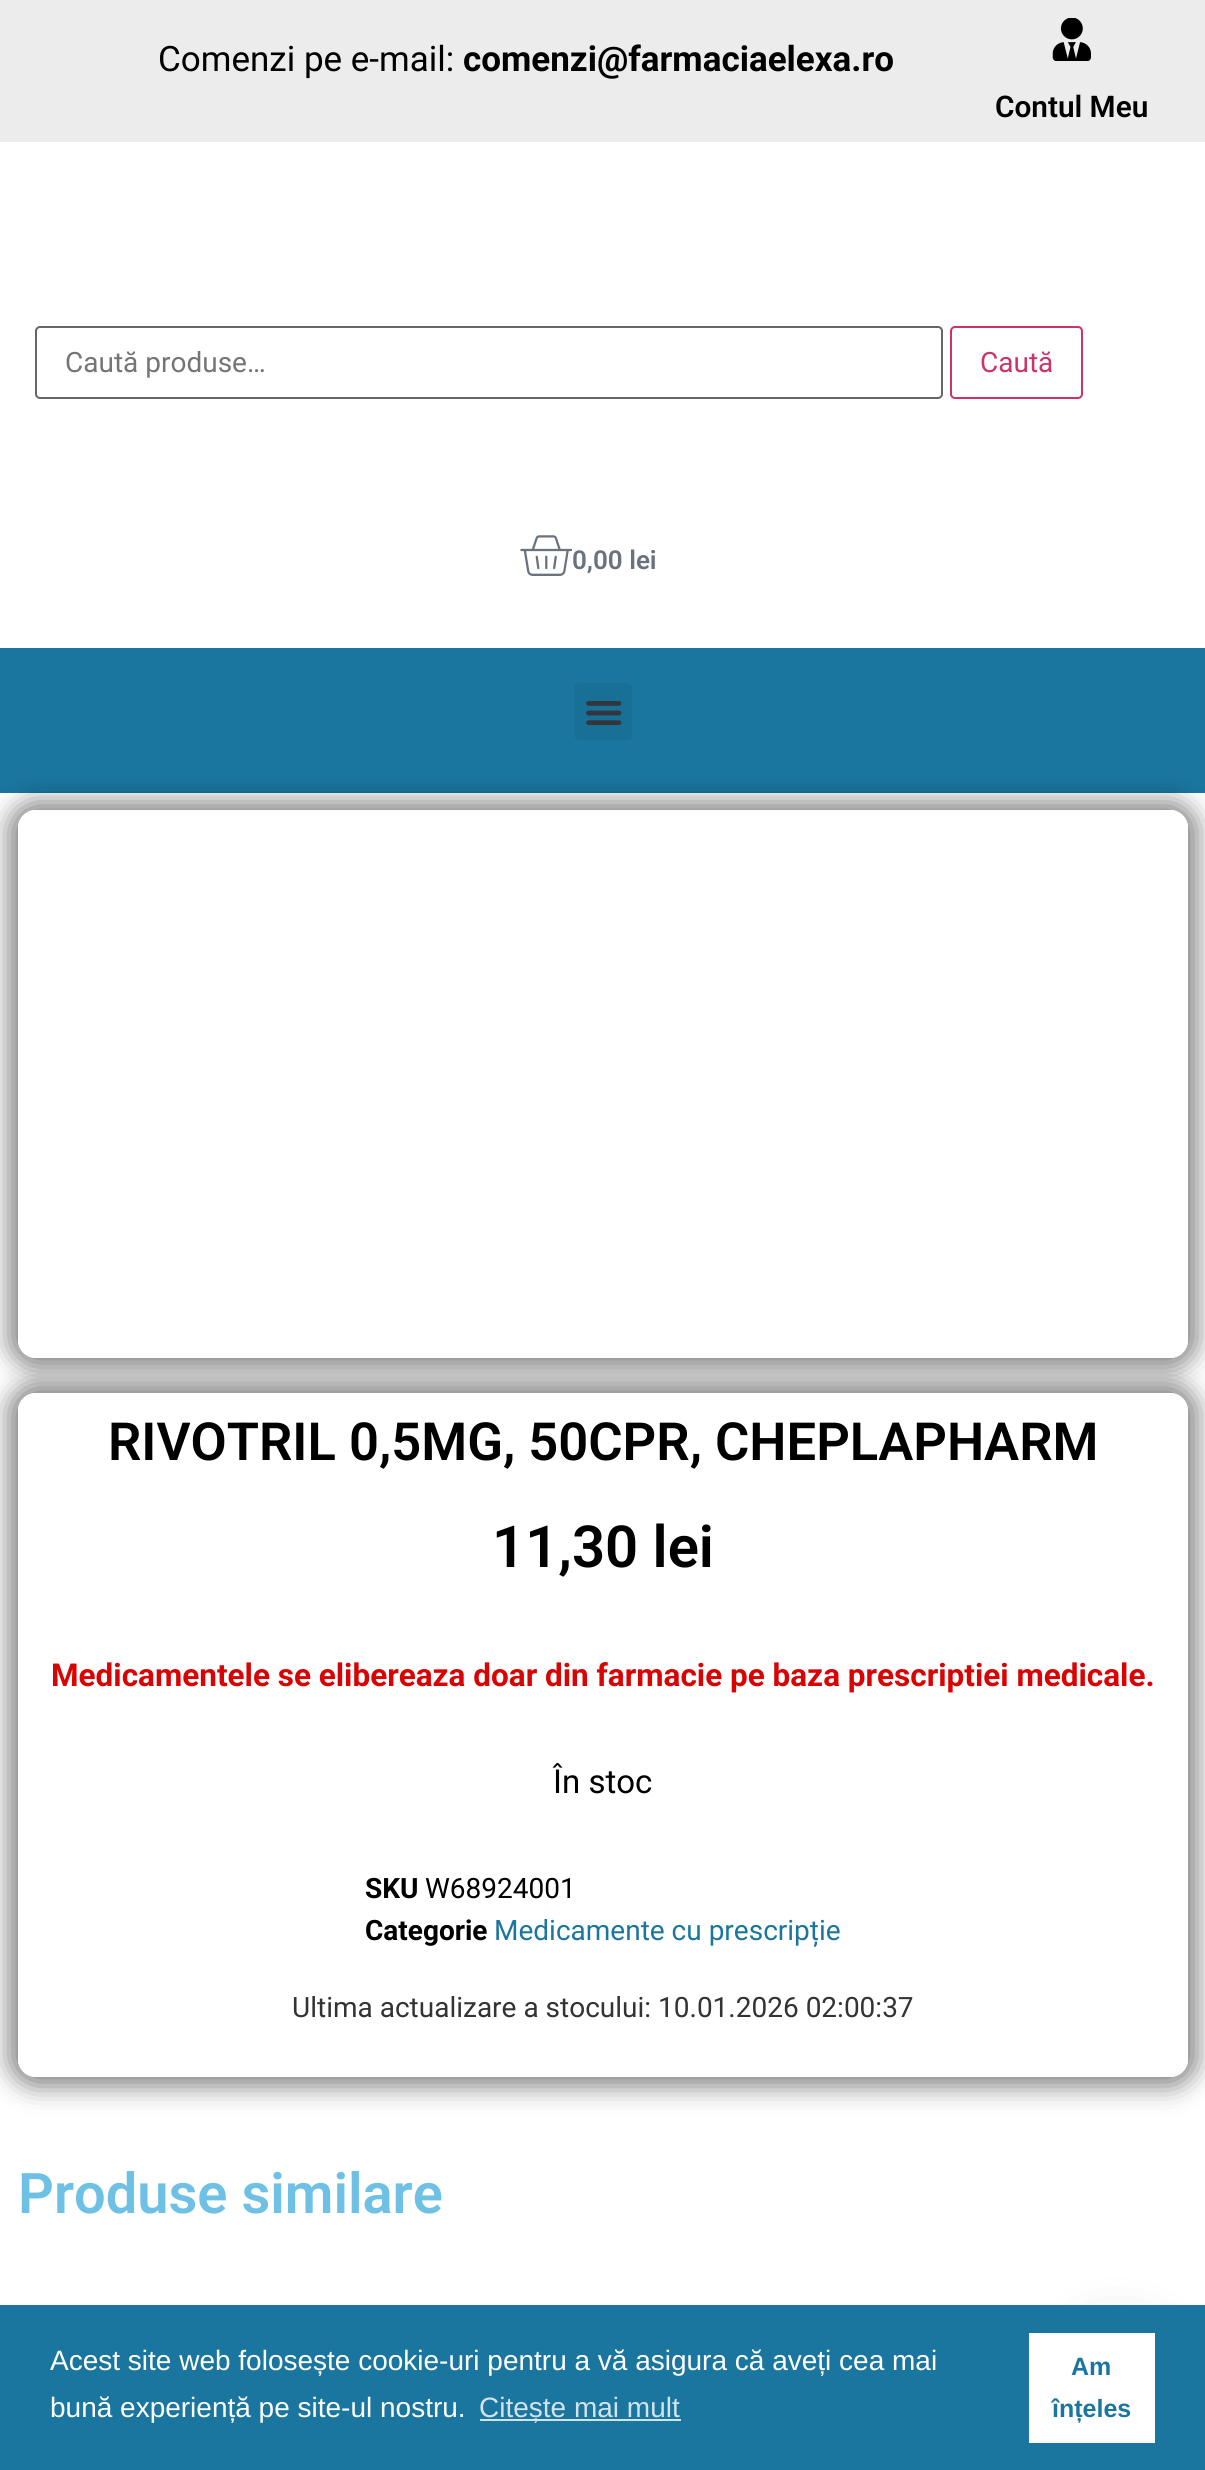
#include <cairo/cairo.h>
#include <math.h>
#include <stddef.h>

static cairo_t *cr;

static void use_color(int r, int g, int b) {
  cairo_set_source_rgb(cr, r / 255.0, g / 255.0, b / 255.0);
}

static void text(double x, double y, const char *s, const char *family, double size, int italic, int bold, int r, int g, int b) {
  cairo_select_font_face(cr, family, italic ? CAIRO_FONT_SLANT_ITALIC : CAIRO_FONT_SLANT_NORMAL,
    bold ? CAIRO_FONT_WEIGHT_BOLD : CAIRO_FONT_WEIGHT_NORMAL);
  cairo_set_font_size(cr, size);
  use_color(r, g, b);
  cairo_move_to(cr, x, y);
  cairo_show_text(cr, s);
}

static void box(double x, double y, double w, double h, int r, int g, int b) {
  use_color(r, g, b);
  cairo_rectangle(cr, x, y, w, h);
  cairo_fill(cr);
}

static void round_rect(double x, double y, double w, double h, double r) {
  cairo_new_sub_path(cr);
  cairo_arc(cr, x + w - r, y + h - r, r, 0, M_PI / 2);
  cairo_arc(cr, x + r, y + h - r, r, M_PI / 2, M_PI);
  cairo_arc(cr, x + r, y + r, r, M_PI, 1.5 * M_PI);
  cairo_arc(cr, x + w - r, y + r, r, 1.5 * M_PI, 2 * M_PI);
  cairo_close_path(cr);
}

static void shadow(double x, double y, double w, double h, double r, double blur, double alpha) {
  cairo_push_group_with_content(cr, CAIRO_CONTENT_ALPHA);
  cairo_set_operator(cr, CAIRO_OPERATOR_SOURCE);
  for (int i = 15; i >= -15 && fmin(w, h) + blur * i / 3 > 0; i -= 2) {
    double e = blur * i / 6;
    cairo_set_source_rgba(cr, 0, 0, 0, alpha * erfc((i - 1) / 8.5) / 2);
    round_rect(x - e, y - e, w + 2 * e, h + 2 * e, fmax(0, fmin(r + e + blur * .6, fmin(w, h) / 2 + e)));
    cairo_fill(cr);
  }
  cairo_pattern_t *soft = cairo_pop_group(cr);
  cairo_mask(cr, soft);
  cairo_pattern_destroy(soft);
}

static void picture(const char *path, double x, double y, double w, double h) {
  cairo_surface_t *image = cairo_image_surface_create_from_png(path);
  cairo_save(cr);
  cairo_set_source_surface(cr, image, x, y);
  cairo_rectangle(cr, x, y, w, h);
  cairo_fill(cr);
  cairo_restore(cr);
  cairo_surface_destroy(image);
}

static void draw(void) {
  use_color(255, 255, 255);
  cairo_paint(cr);
  box(0, 0, 1205, 142, 236, 236, 236);
  picture("img_01.png", 1052, 18, 39, 43);
  round_rect(36, 327, 906, 71, 4);
  use_color(102, 102, 102);
  cairo_stroke(cr);
  round_rect(951, 327, 131, 71, 4);
  use_color(204, 51, 102);
  cairo_stroke(cr);
  picture("img_02.png", 520, 535, 52, 41);
  box(0, 648, 1205, 145, 26, 118, 159);
  use_color(25, 112, 151);
  round_rect(574, 683, 58, 57, 5);
  cairo_fill(cr);
  picture("img_03.png", 586, 701, 36, 25);
  cairo_save(cr);
  cairo_set_fill_rule(cr, CAIRO_FILL_RULE_EVEN_ODD);
  cairo_new_path(cr);
  cairo_move_to(cr, 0, 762);
  cairo_line_to(cr, 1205, 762);
  cairo_line_to(cr, 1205, 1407);
  cairo_line_to(cr, 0, 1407);
  cairo_close_path(cr);
  cairo_move_to(cr, 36, 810);
  cairo_line_to(cr, 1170, 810);
  cairo_curve_to(cr, 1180, 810, 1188, 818, 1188, 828);
  cairo_line_to(cr, 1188, 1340);
  cairo_curve_to(cr, 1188, 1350, 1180, 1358, 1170, 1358);
  cairo_line_to(cr, 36, 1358);
  cairo_curve_to(cr, 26, 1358, 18, 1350, 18, 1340);
  cairo_line_to(cr, 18, 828);
  cairo_curve_to(cr, 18, 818, 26, 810, 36, 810);
  cairo_close_path(cr);
  cairo_clip(cr);
  use_color(0, 0, 0);
  shadow(9, 802, 1188, 565, 26, 13, 0.5);
  cairo_restore(cr);
  round_rect(20.5, 812.5, 1165, 543, 15.5);
  use_color(255, 255, 255);
  cairo_set_line_width(cr, 5);
  cairo_stroke(cr);
  cairo_save(cr);
  cairo_set_fill_rule(cr, CAIRO_FILL_RULE_EVEN_ODD);
  cairo_new_path(cr);
  cairo_move_to(cr, 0, 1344);
  cairo_line_to(cr, 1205, 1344);
  cairo_line_to(cr, 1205, 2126);
  cairo_line_to(cr, 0, 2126);
  cairo_close_path(cr);
  cairo_move_to(cr, 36, 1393);
  cairo_line_to(cr, 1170, 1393);
  cairo_curve_to(cr, 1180, 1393, 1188, 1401, 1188, 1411);
  cairo_line_to(cr, 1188, 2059);
  cairo_curve_to(cr, 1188, 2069, 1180, 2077, 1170, 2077);
  cairo_line_to(cr, 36, 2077);
  cairo_curve_to(cr, 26, 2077, 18, 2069, 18, 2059);
  cairo_line_to(cr, 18, 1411);
  cairo_curve_to(cr, 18, 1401, 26, 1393, 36, 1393);
  cairo_close_path(cr);
  cairo_clip(cr);
  use_color(0, 0, 0);
  shadow(9, 1384, 1188, 702, 26, 13, 0.5);
  cairo_restore(cr);
  round_rect(20.5, 1395.5, 1165, 679, 15.5);
  cairo_stroke(cr);
  use_color(0, 0, 0);
  shadow(1066, 2328, 105, 105, 52.5, 28, 0.16);
  box(0, 2305, 1205, 165, 26, 118, 159);
  box(480, 2419, 201, 2, 209, 228, 236);
  box(1029, 2333, 126, 110, 255, 255, 255);
  text(158, 71, "Comenzi pe e-mail:", "Roboto", 35, 0, 0, 0, 0, 0);
  text(463, 71, "comenzi@farmaciaelexa.ro", "Roboto", 35, 0, 1, 0, 0, 0);
  text(995, 117, "Contul Meu", "Roboto SemiBold", 29.75, 0, 0, 0, 0, 0);
  text(65, 372, "Caută produse…", "Roboto", 28, 0, 0, 117, 117, 117);
  text(980, 372, "Caută", "Roboto", 28, 0, 0, 204, 51, 102);
  text(572, 569, "0,00 lei", "Roboto SemiBold", 26, 0, 0, 105, 114, 125);
  text(108, 1460, "RIVOTRIL 0,5MG, 50CPR, CHEPLAPHARM", "Roboto SemiBold", 52.5, 0, 0, 0, 0, 0);
  text(492, 1567, "11,30 lei", "Roboto SemiBold", 58, 0, 0, 0, 0, 0);
  text(51, 1686, "Medicamentele se elibereaza doar din farmacie pe baza prescriptiei medicale.", "Roboto", 31.5, 0, 1, 216, 3, 3);
  text(553, 1793, "În stoc", "Roboto", 33, 0, 0, 0, 0, 0);
  text(365, 1898, "SKU", "Roboto", 28, 0, 1, 0, 0, 0);
  text(425, 1898, "W68924001", "Roboto", 28, 0, 0, 0, 0, 0);
  text(365, 1940, "Categorie", "Roboto", 28, 0, 1, 0, 0, 0);
  text(494, 1940, "Medicamente cu prescripție", "Roboto", 28, 0, 0, 26, 118, 159);
  text(292, 2017, "Ultima actualizare a stocului: 10.01.2026 02:00:37", "Roboto", 28, 0, 0, 51, 51, 51);
  text(18, 2213, "Produse similare", "Roboto SemiBold", 56, 0, 0, 110, 193, 228);
  text(50, 2370, "Acest site web folosește cookie-uri pentru a vă asigura că aveți cea mai", "Liberation Sans", 28, 0, 0, 255, 255, 255);
  text(50, 2417, "bună experiență pe site-ul nostru.", "Liberation Sans", 28, 0, 0, 255, 255, 255);
  text(479, 2417, "Citește mai mult", "Liberation Sans", 28, 0, 0, 209, 228, 236);
  text(1071, 2375, "Am", "Liberation Sans", 25, 0, 1, 26, 118, 159);
  text(1052, 2417, "înțeles", "Liberation Sans", 25, 0, 1, 26, 118, 159);
}

int main(void) {
  cairo_surface_t *surface = cairo_image_surface_create(CAIRO_FORMAT_RGB24, 1205, 2470);
  cr = cairo_create(surface);
  cairo_font_options_t *options = cairo_font_options_create();
  cairo_font_options_set_hint_metrics(options, CAIRO_HINT_METRICS_OFF);
  cairo_font_options_set_hint_style(options, CAIRO_HINT_STYLE_NONE);
  cairo_set_font_options(cr, options);
  cairo_set_miter_limit(cr, 4);
  draw();
  cairo_surface_write_to_png(surface, "out.png");
  cairo_font_options_destroy(options);
  cairo_destroy(cr);
  cairo_surface_destroy(surface);
  return 0;
}
